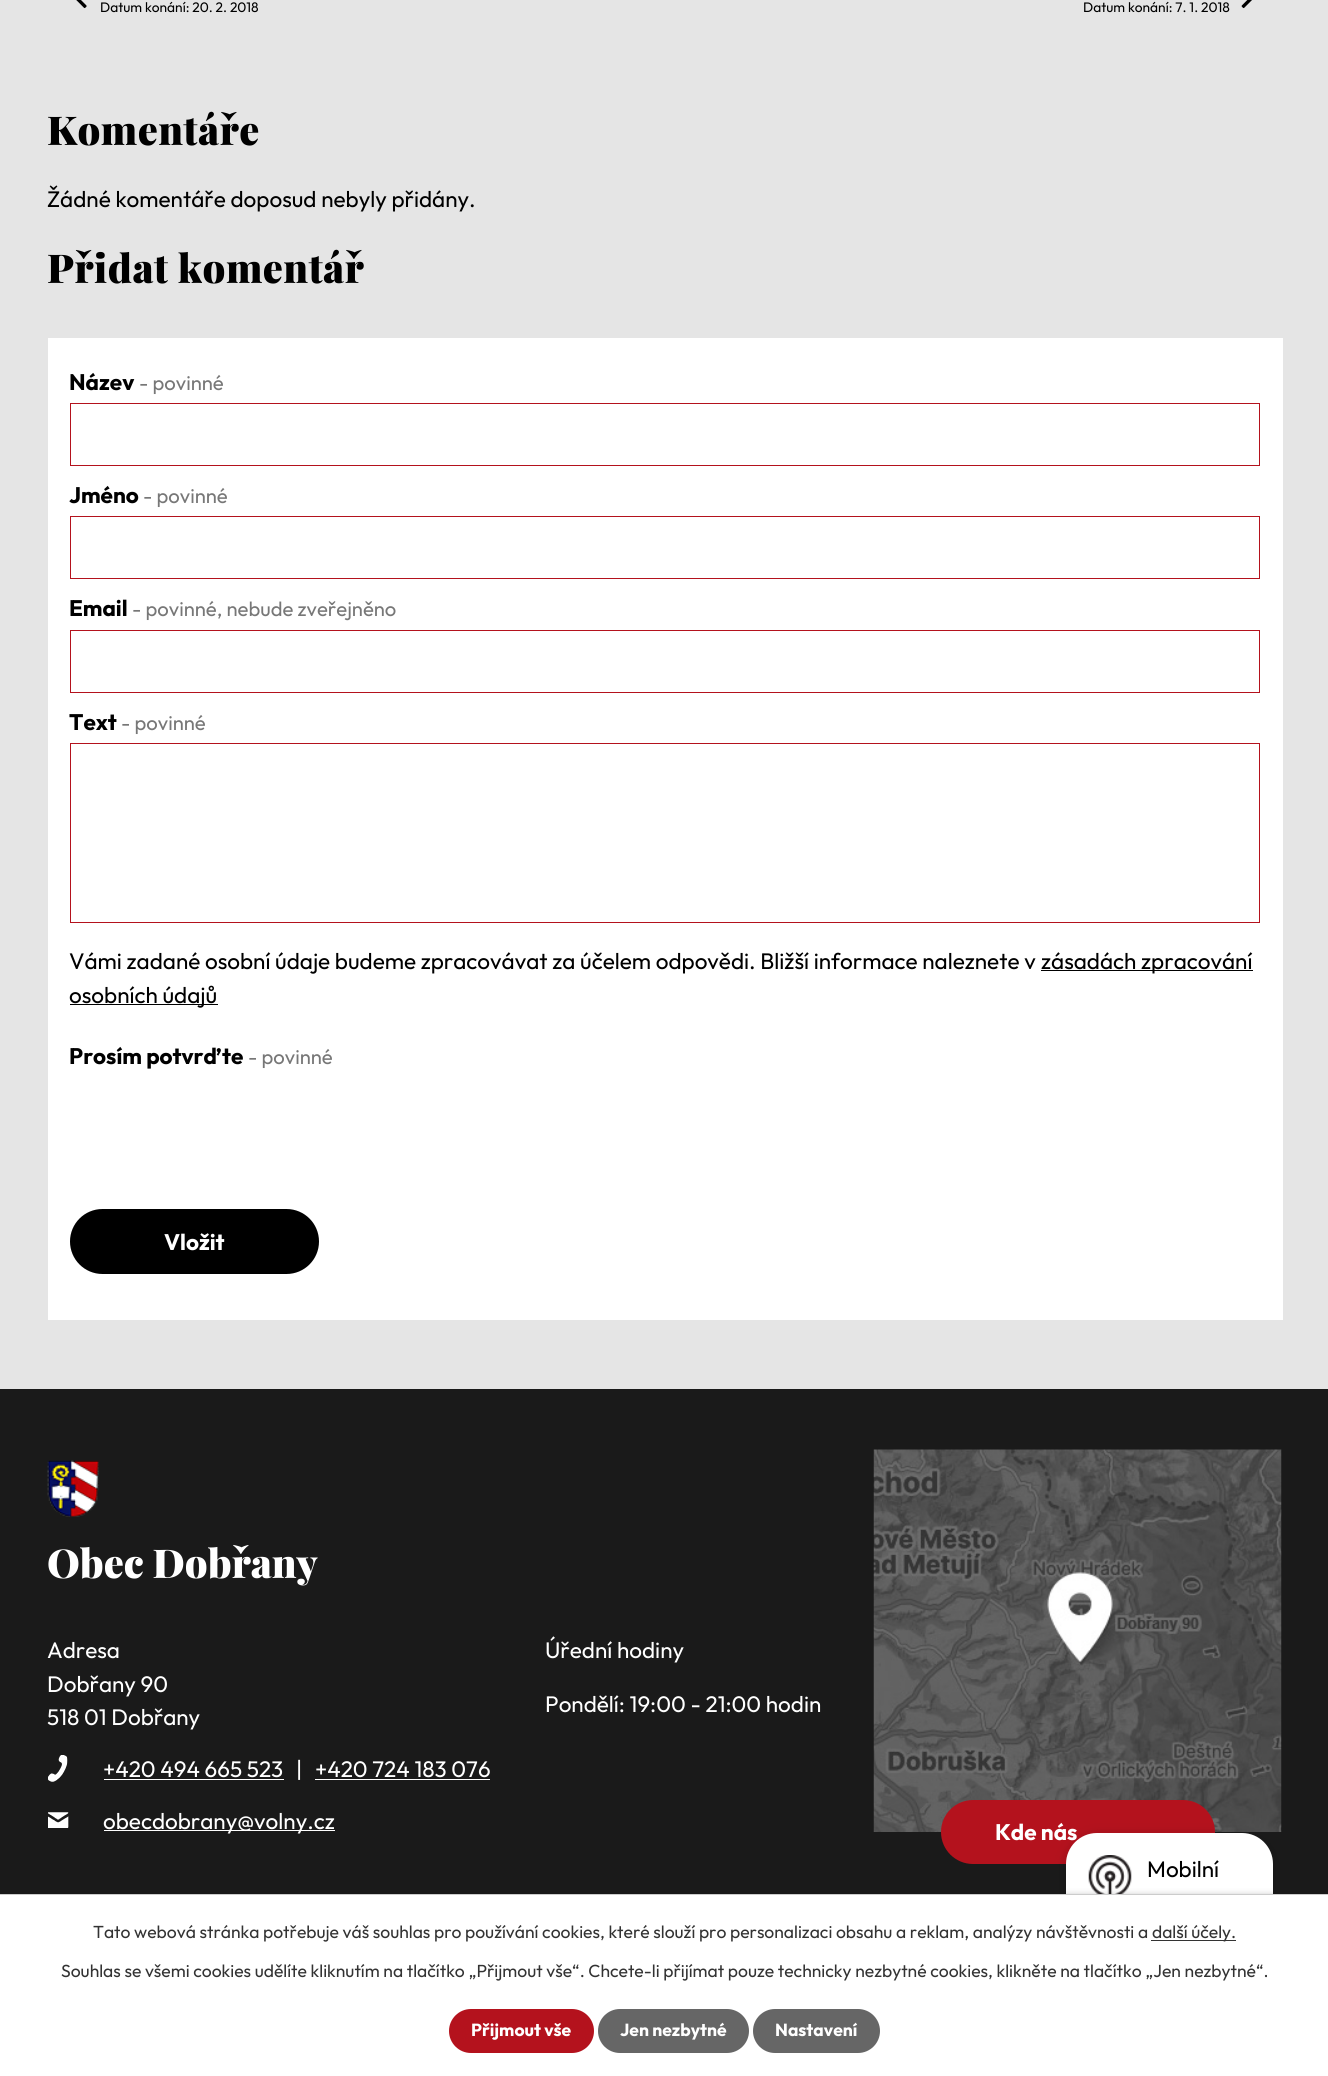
#include <cairo/cairo.h>
#include <math.h>
#include <stddef.h>

static cairo_t *cr;

static void use_color(int r, int g, int b) {
  cairo_set_source_rgb(cr, r / 255.0, g / 255.0, b / 255.0);
}

static void text(double x, double y, const char *s, const char *family, double size, int italic, int bold, int r, int g, int b) {
  cairo_select_font_face(cr, family, italic ? CAIRO_FONT_SLANT_ITALIC : CAIRO_FONT_SLANT_NORMAL,
    bold ? CAIRO_FONT_WEIGHT_BOLD : CAIRO_FONT_WEIGHT_NORMAL);
  cairo_set_font_size(cr, size);
  use_color(r, g, b);
  cairo_move_to(cr, x, y);
  cairo_show_text(cr, s);
}

static void spaced_text(double x, double y, const char *s, double letter, double word) {
  cairo_move_to(cr, x, y);
  while (*s) {
    char ch[5] = {0};
    int n = 0;
    do ch[n++] = *s++; while ((*s & 0xC0) == 0x80);
    cairo_show_text(cr, ch);
    cairo_rel_move_to(cr, letter + word * (*ch == ' '), 0);
  }
}

static void box(double x, double y, double w, double h, int r, int g, int b) {
  use_color(r, g, b);
  cairo_rectangle(cr, x, y, w, h);
  cairo_fill(cr);
}

static void round_rect(double x, double y, double w, double h, double r) {
  cairo_new_sub_path(cr);
  cairo_arc(cr, x + w - r, y + h - r, r, 0, M_PI / 2);
  cairo_arc(cr, x + r, y + h - r, r, M_PI / 2, M_PI);
  cairo_arc(cr, x + r, y + r, r, M_PI, 1.5 * M_PI);
  cairo_arc(cr, x + w - r, y + r, r, 1.5 * M_PI, 2 * M_PI);
  cairo_close_path(cr);
}

static void shadow(double x, double y, double w, double h, double r, double blur, double alpha) {
  cairo_push_group_with_content(cr, CAIRO_CONTENT_ALPHA);
  cairo_set_operator(cr, CAIRO_OPERATOR_SOURCE);
  for (int i = 15; i >= -15 && fmin(w, h) + blur * i / 3 > 0; i -= 2) {
    double e = blur * i / 6;
    cairo_set_source_rgba(cr, 0, 0, 0, alpha * erfc((i - 1) / 8.5) / 2);
    round_rect(x - e, y - e, w + 2 * e, h + 2 * e, fmax(0, fmin(r + e + blur * .6, fmin(w, h) / 2 + e)));
    cairo_fill(cr);
  }
  cairo_pattern_t *soft = cairo_pop_group(cr);
  cairo_mask(cr, soft);
  cairo_pattern_destroy(soft);
}

static void picture(const char *path, double x, double y, double w, double h) {
  cairo_surface_t *image = cairo_image_surface_create_from_png(path);
  cairo_save(cr);
  cairo_set_source_surface(cr, image, x, y);
  cairo_rectangle(cr, x, y, w, h);
  cairo_fill(cr);
  cairo_restore(cr);
  cairo_surface_destroy(image);
}

static void draw(void) {
  use_color(229, 229, 229);
  cairo_paint(cr);
  picture("img_01.png", 76, 0, 11, 9);
  picture("img_02.png", 1241, 0, 11, 9);
  box(48, 338, 1235, 982, 255, 255, 255);
  cairo_rectangle(cr, 70.5, 403.5, 1189, 62);
  use_color(180, 18, 29);
  cairo_set_line_width(cr, 1);
  cairo_stroke(cr);
  cairo_rectangle(cr, 70.5, 516.5, 1189, 62);
  cairo_stroke(cr);
  cairo_rectangle(cr, 70.5, 630.5, 1189, 62);
  cairo_stroke(cr);
  cairo_rectangle(cr, 70.5, 743.5, 1189, 179);
  cairo_stroke(cr);
  box(1041, 970, 212, 1, 0, 0, 0);
  box(70, 1004, 148, 1, 0, 0, 0);
  round_rect(70, 1209, 249, 65, 32.5);
  cairo_fill(cr);
  box(0, 1389, 1328, 505, 26, 26, 26);
  picture("img_07.png", 873, 1449, 409, 383);
  use_color(180, 18, 29);
  round_rect(941, 1800, 274, 64, 32);
  cairo_fill(cr);
  use_color(0, 0, 0);
  shadow(1066, 1836, 207, 188, 31, 6, 0.2);
  use_color(255, 255, 255);
  round_rect(1066, 1833, 207, 187, 31);
  cairo_fill(cr);
  picture("img_03.png", 1088, 1855, 44, 39);
  picture("img_04.png", 47, 1460, 52, 57);
  picture("img_05.png", 48, 1755, 20, 27);
  box(104, 1779, 180, 1, 255, 255, 255);
  box(315, 1779, 175, 1, 255, 255, 255);
  picture("img_06.png", 48, 1812, 21, 16);
  box(104, 1830, 231, 1, 255, 255, 255);
  use_color(0, 0, 0);
  shadow(0, 1894, 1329, 182, 0, 3, 0.2);
  box(0, 1895, 1328, 181, 255, 255, 255);
  box(0, 1894, 1328, 1, 204, 204, 204);
  box(1151, 1940, 85, 1, 51, 51, 51);
  use_color(180, 18, 29);
  round_rect(449, 2009, 145, 44, 22);
  cairo_fill(cr);
  use_color(102, 102, 102);
  round_rect(598, 2009, 151, 44, 22);
  cairo_fill(cr);
  round_rect(753, 2009, 127, 44, 22);
  cairo_fill(cr);
  text(100, 12, "Datum konání: 20. 2. 2018", "Outfit", 13.75, 0, 0, 0, 0, 0);
  text(1083, 12, "Datum konání: 7. 1. 2018", "Outfit", 13.75, 0, 0, 0, 0, 0);
  cairo_select_font_face(cr, "Playfair Display Black", CAIRO_FONT_SLANT_NORMAL, CAIRO_FONT_WEIGHT_NORMAL);
  cairo_set_font_size(cr, 39.75);
  spaced_text(47, 145, "Komentáře", 0.5, 0);
  text(47, 207, "Žádné komentáře doposud nebyly přidány.", "Outfit", 22.5, 0, 0, 0, 0, 0);
  cairo_select_font_face(cr, "Playfair Display Black", CAIRO_FONT_SLANT_NORMAL, CAIRO_FONT_WEIGHT_NORMAL);
  cairo_set_font_size(cr, 39.75);
  spaced_text(47, 283, "Přidat komentář", 0.5, 0);
  text(69, 390, "Název", "Outfit", 22.5, 0, 1, 0, 0, 0);
  text(139, 390, "- povinné", "Outfit", 20.25, 0, 0, 119, 119, 119);
  text(69, 503, "Jméno", "Outfit", 22.5, 0, 1, 0, 0, 0);
  text(143, 503, "- povinné", "Outfit", 20.25, 0, 0, 119, 119, 119);
  text(69, 616, "Email", "Outfit", 22.5, 0, 1, 0, 0, 0);
  text(132, 616, "- povinné, nebude zveřejněno", "Outfit", 20.25, 0, 0, 119, 119, 119);
  text(69, 730, "Text", "Outfit", 22.5, 0, 1, 0, 0, 0);
  text(121, 730, "- povinné", "Outfit", 20.25, 0, 0, 119, 119, 119);
  text(69, 969, "Vámi zadané osobní údaje budeme zpracovávat za účelem odpovědi. Bližší informace naleznete v", "Outfit", 22.5, 0, 0, 0, 0, 0);
  text(1041, 969, "zásadách zpracování", "Outfit", 22.5, 0, 0, 0, 0, 0);
  text(69, 1003, "osobních údajů", "Outfit", 22.5, 0, 0, 0, 0, 0);
  text(69, 1064, "Prosím potvrďte", "Outfit", 22.5, 0, 1, 0, 0, 0);
  text(248, 1064, "- povinné", "Outfit", 20.25, 0, 0, 119, 119, 119);
  text(164, 1250, "Vložit", "Outfit", 22.5, 0, 1, 255, 255, 255);
  text(1147, 1877, "Mobilní", "Outfit", 22.5, 0, 0, 0, 0, 0);
  text(47, 1578, "Obec Dobřany", "Playfair Display Black", 39.75, 0, 0, 255, 255, 255);
  text(47, 1658, "Adresa", "Outfit", 22.5, 0, 0, 255, 255, 255);
  text(47, 1692, "Dobřany 90", "Outfit", 22.5, 0, 0, 255, 255, 255);
  text(47, 1725, "518 01 Dobřany", "Outfit", 22.5, 0, 0, 255, 255, 255);
  text(103, 1777, "+420 494 665 523", "Outfit", 22.5, 0, 0, 255, 255, 255);
  text(296, 1777, "|", "Outfit", 22.5, 0, 0, 255, 255, 255);
  text(315, 1777, "+420 724 183 076", "Outfit", 22.5, 0, 0, 255, 255, 255);
  text(103, 1829, "obecdobrany@volny.cz", "Outfit", 22.5, 0, 0, 255, 255, 255);
  text(545, 1658, "Úřední hodiny", "Outfit", 22.5, 0, 0, 255, 255, 255);
  text(545, 1712, "Pondělí: 19:00 - 21:00 hodin", "Outfit", 22.5, 0, 0, 255, 255, 255);
  text(995, 1840, "Kde nás", "Outfit", 22.5, 0, 1, 255, 255, 255);
  text(93, 1938, "Tato webová stránka potřebuje váš souhlas pro používání cookies, které slouží pro personalizaci obsahu a reklam, analýzy návštěvnosti a", "Outfit", 17.5, 0, 0, 51, 51, 51);
  text(1152, 1938, "další účely.", "Outfit", 17.5, 0, 0, 51, 51, 51);
  text(61, 1977, "Souhlas se všemi cookies udělíte kliknutím na tlačítko „Přijmout vše“. Chcete-li přijímat pouze technicky nezbytné cookies, klikněte na tlačítko „Jen nezbytné“.", "Outfit", 17.5, 0, 0, 51, 51, 51);
  text(471, 2036, "Přijmout vše", "Outfit", 17.5, 0, 1, 255, 255, 255);
  text(620, 2036, "Jen nezbytné", "Outfit", 17.5, 0, 1, 255, 255, 255);
  text(775, 2036, "Nastavení", "Outfit", 17.5, 0, 1, 255, 255, 255);
}

int main(void) {
  cairo_surface_t *surface = cairo_image_surface_create(CAIRO_FORMAT_RGB24, 1328, 2076);
  cr = cairo_create(surface);
  cairo_font_options_t *options = cairo_font_options_create();
  cairo_font_options_set_hint_metrics(options, CAIRO_HINT_METRICS_OFF);
  cairo_font_options_set_hint_style(options, CAIRO_HINT_STYLE_NONE);
  cairo_set_font_options(cr, options);
  cairo_set_miter_limit(cr, 4);
  draw();
  cairo_surface_write_to_png(surface, "out.png");
  cairo_font_options_destroy(options);
  cairo_destroy(cr);
  cairo_surface_destroy(surface);
  return 0;
}
